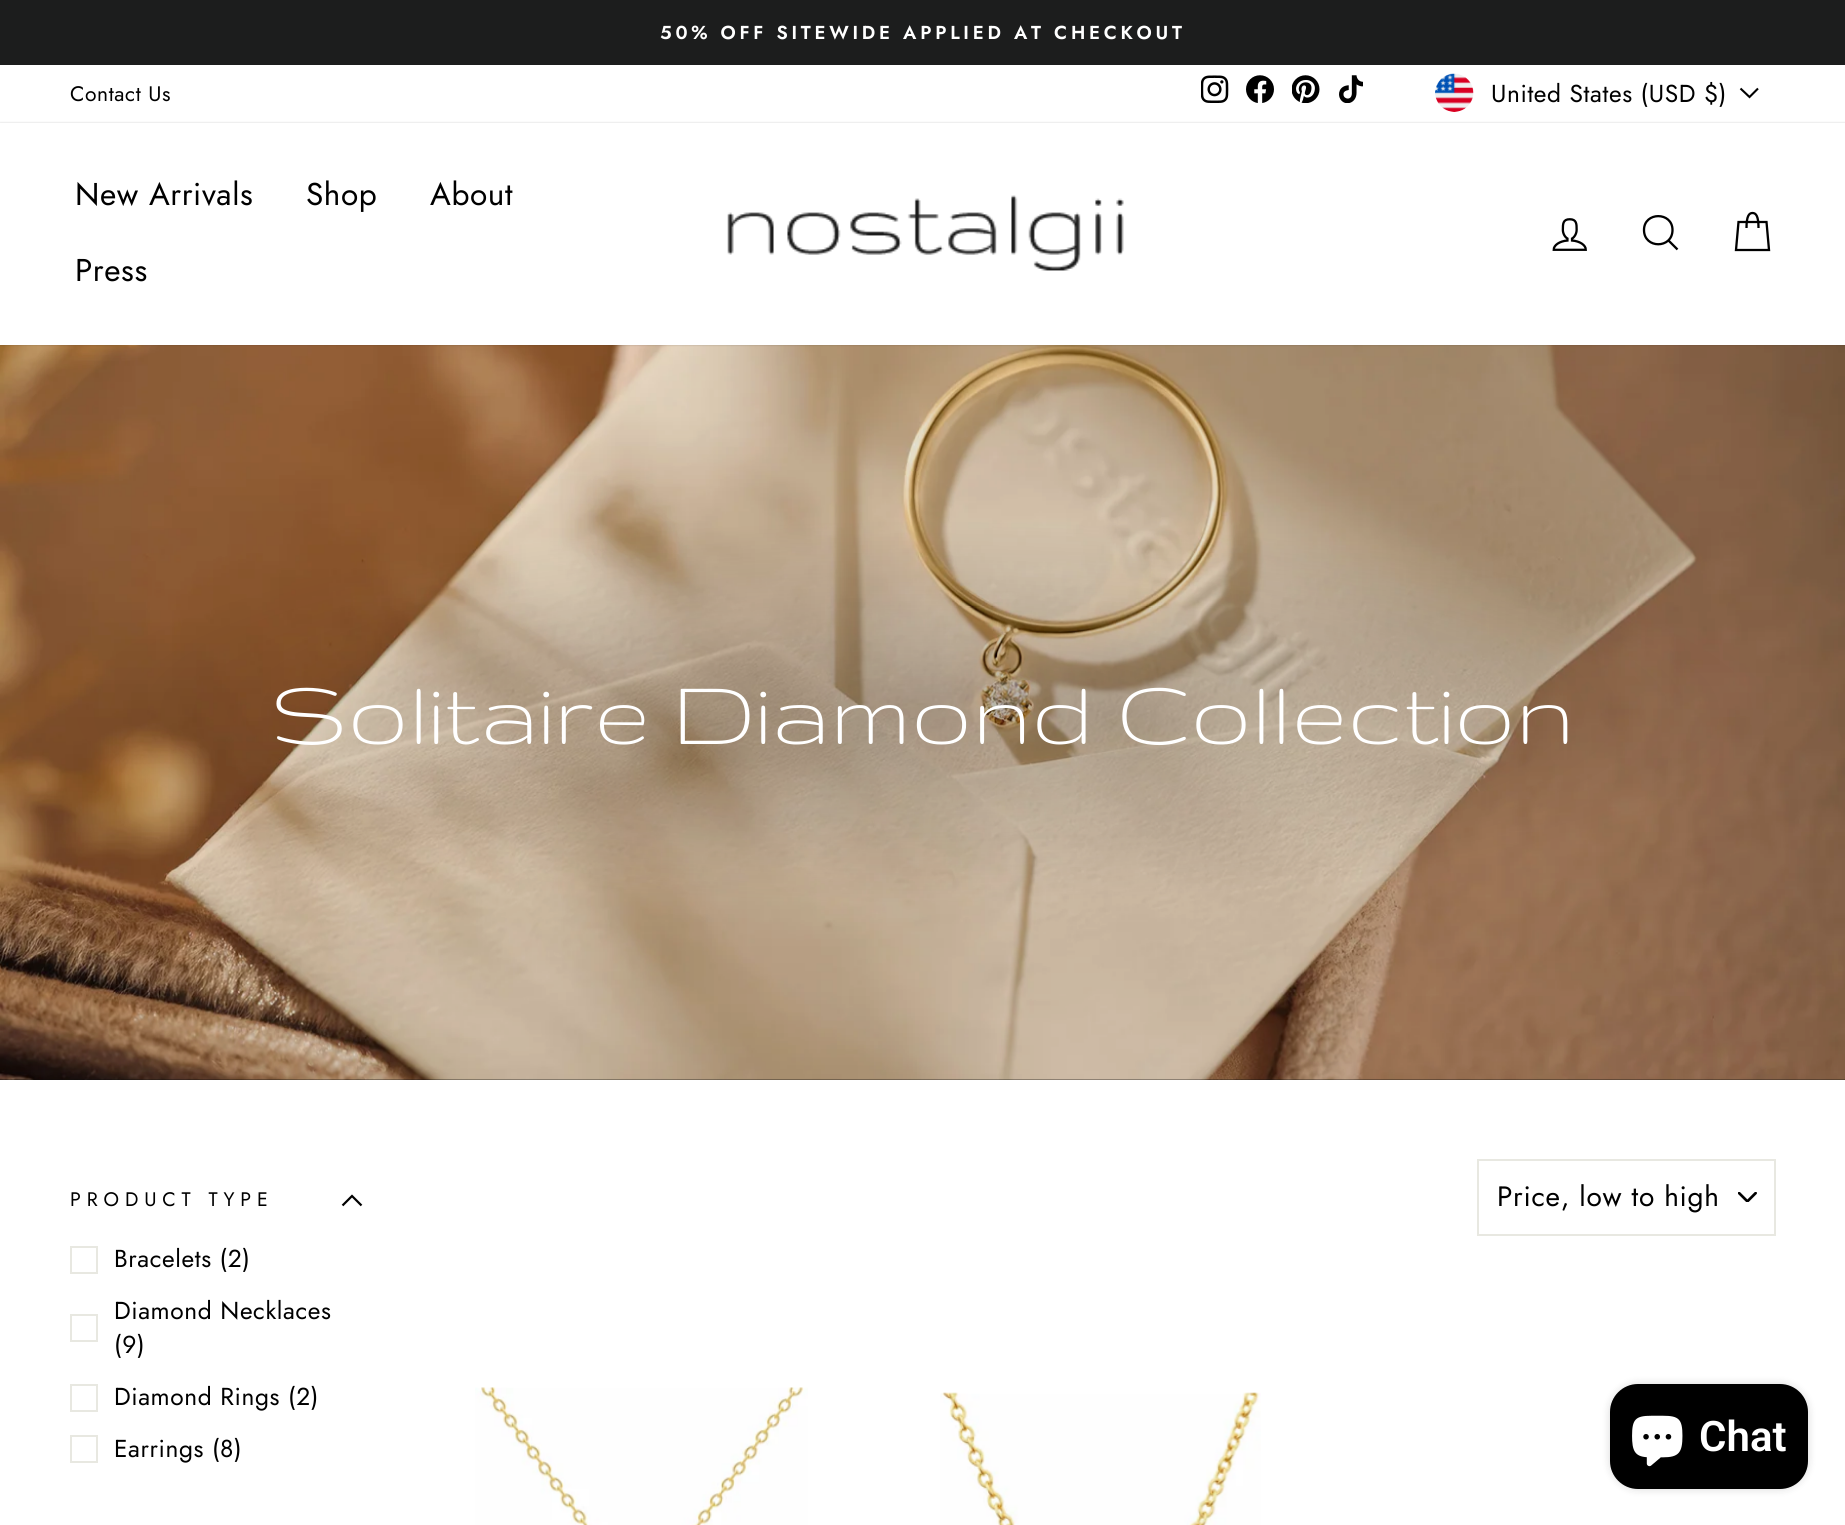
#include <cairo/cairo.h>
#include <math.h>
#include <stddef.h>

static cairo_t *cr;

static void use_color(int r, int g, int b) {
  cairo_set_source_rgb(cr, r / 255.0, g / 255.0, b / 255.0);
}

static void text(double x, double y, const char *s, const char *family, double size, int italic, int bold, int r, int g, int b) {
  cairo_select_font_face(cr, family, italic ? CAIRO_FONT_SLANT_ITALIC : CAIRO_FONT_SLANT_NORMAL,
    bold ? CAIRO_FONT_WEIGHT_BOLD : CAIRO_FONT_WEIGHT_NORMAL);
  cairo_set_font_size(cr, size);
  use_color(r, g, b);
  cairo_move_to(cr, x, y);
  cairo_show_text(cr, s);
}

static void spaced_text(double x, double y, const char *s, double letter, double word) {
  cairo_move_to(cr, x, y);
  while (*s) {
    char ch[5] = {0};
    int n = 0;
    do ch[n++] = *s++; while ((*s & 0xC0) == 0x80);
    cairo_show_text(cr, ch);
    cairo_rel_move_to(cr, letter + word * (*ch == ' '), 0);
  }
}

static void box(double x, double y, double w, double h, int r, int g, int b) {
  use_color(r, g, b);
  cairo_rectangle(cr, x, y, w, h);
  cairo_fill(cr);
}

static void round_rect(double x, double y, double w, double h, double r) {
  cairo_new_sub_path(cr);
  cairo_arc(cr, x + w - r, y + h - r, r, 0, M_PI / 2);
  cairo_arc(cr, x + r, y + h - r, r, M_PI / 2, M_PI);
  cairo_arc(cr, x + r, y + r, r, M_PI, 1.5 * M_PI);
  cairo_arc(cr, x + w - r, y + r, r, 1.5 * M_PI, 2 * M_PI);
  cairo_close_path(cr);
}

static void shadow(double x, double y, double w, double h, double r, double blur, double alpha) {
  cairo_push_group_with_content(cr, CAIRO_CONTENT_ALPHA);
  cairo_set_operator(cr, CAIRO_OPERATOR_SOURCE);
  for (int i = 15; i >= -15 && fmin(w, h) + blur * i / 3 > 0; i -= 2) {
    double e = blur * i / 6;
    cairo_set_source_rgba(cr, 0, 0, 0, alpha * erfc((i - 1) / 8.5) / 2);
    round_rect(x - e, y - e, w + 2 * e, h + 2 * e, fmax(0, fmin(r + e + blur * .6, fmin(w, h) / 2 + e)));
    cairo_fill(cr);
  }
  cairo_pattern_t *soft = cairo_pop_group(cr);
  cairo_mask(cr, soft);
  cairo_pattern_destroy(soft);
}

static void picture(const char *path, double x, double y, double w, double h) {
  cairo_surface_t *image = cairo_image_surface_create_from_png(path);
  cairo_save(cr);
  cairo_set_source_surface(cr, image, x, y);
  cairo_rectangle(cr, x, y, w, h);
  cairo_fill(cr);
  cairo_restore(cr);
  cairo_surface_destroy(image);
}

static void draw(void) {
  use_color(255, 255, 255);
  cairo_paint(cr);
  box(0, 0, 1845, 65, 28, 29, 29);
  picture("img_01.png", 1201, 75, 28, 28);
  picture("img_02.png", 1246, 75, 28, 28);
  picture("img_03.png", 1292, 75, 28, 28);
  picture("img_04.png", 1339, 75, 24, 28);
  picture("img_05.png", 1435, 73, 39, 39);
  cairo_new_path(cr);
  cairo_move_to(cr, 1740.5, 88.5);
  cairo_line_to(cr, 1749.5, 97);
  cairo_line_to(cr, 1758, 88.5);
  use_color(0, 0, 0);
  cairo_set_line_width(cr, 2.1);
  cairo_stroke(cr);
  box(0, 1079, 1845, 1, 14, 14, 14);
  picture("img_08.png", 0, 345, 1845, 735);
  use_color(0, 0, 0);
  shadow(0, 123, 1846, 222, 0, 1, 0.2);
  box(0, 123, 1845, 222, 255, 255, 255);
  picture("img_06.png", 727, 195, 397, 76);
  picture("img_07.png", 1552, 218, 35, 33);
  cairo_new_path(cr);
  cairo_move_to(cr, 1672.5, 230);
  cairo_curve_to(cr, 1672.5, 249, 1644, 249, 1644, 230);
  cairo_curve_to(cr, 1644, 211.5, 1672.5, 211.5, 1672.5, 230);
  cairo_close_path(cr);
  cairo_move_to(cr, 1677.5, 249.5);
  cairo_line_to(cr, 1668.5, 240.5);
  use_color(0, 0, 0);
  cairo_set_line_width(cr, 2.3);
  cairo_stroke(cr);
  cairo_new_path(cr);
  cairo_move_to(cr, 1746.5, 228);
  cairo_curve_to(cr, 1746.5, 216, 1749, 213, 1752.5, 213);
  cairo_curve_to(cr, 1756, 213, 1758.5, 216, 1758.5, 228);
  cairo_move_to(cr, 1738.5, 222);
  cairo_line_to(cr, 1766.5, 222);
  cairo_line_to(cr, 1769, 250);
  cairo_line_to(cr, 1736, 250);
  cairo_close_path(cr);
  cairo_stroke(cr);
  cairo_new_path(cr);
  cairo_move_to(cr, 342.5, 1205.5);
  cairo_line_to(cr, 352, 1196);
  cairo_line_to(cr, 361.5, 1205.5);
  cairo_set_line_width(cr, 2.2);
  cairo_stroke(cr);
  cairo_rectangle(cr, 71, 1247, 26, 26);
  use_color(232, 232, 225);
  cairo_set_line_width(cr, 2);
  cairo_stroke(cr);
  cairo_rectangle(cr, 71, 1315, 26, 26);
  cairo_stroke(cr);
  cairo_rectangle(cr, 71, 1385, 26, 26);
  cairo_stroke(cr);
  cairo_rectangle(cr, 71, 1436, 26, 26);
  cairo_stroke(cr);
  picture("img_09.png", 1738, 1192, 19, 10);
  cairo_rectangle(cr, 1478, 1160, 297, 75);
  cairo_stroke(cr);
  picture("img_10.png", 475, 1387, 333, 138);
  picture("img_11.png", 940, 1392, 321, 133);
  use_color(0, 0, 0);
  shadow(1610, 1384, 198, 105, 28, 4.5, 0.15);
  use_color(0, 0, 0);
  round_rect(1610, 1384, 198, 105, 28);
  cairo_fill(cr);
  picture("img_12.png", 1632, 1415, 51, 52);
  cairo_select_font_face(cr, "Jost SemiBold", CAIRO_FONT_SLANT_NORMAL, CAIRO_FONT_WEIGHT_NORMAL);
  cairo_set_font_size(cr, 18.75);
  use_color(255, 255, 255);
  spaced_text(660, 39, "50% OFF SITEWIDE APPLIED AT CHECKOUT", 3.75, 0);
  cairo_select_font_face(cr, "Jost", CAIRO_FONT_SLANT_NORMAL, CAIRO_FONT_WEIGHT_NORMAL);
  cairo_set_font_size(cr, 21);
  use_color(0, 0, 0);
  spaced_text(70, 101, "Contact Us", 0.6, 0);
  cairo_set_font_size(cr, 24.5);
  spaced_text(1491, 102, "United States (USD $)", 0.6, 0);
  cairo_set_font_size(cr, 31.5);
  spaced_text(75, 205, "New Arrivals", 0.6, 0);
  spaced_text(306, 205, "Shop", 0.6, 0);
  spaced_text(430, 205, "About", 0.6, 0);
  spaced_text(75, 281, "Press", 0.6, 0);
  text(271, 744, "Solitaire Diamond Collection", "Gruppo", 101.5, 0, 0, 255, 255, 255);
  cairo_select_font_face(cr, "Jost", CAIRO_FONT_SLANT_NORMAL, CAIRO_FONT_WEIGHT_NORMAL);
  cairo_set_font_size(cr, 19.6);
  use_color(0, 0, 0);
  spaced_text(70, 1206, "PRODUCT TYPE", 5.9, 0);
  cairo_set_font_size(cr, 24.5);
  spaced_text(114, 1267, "Bracelets (2)", 0.6, 0);
  spaced_text(114, 1319, "Diamond Necklaces", 0.6, 0);
  spaced_text(114, 1353, "(9)", 0.6, 0);
  spaced_text(114, 1405, "Diamond Rings (2)", 0.6, 0);
  spaced_text(114, 1457, "Earrings (8)", 0.6, 0);
  cairo_set_font_size(cr, 28);
  spaced_text(1497, 1206, "Price, low to high", 0.75, 0);
  text(1699, 1451, "Chat", "Roboto SemiBold", 42, 0, 0, 255, 255, 255);
}

int main(void) {
  cairo_surface_t *surface = cairo_image_surface_create(CAIRO_FORMAT_RGB24, 1845, 1525);
  cr = cairo_create(surface);
  cairo_font_options_t *options = cairo_font_options_create();
  cairo_font_options_set_hint_metrics(options, CAIRO_HINT_METRICS_OFF);
  cairo_font_options_set_hint_style(options, CAIRO_HINT_STYLE_NONE);
  cairo_set_font_options(cr, options);
  cairo_set_miter_limit(cr, 4);
  draw();
  cairo_surface_write_to_png(surface, "out.png");
  cairo_font_options_destroy(options);
  cairo_destroy(cr);
  cairo_surface_destroy(surface);
  return 0;
}
